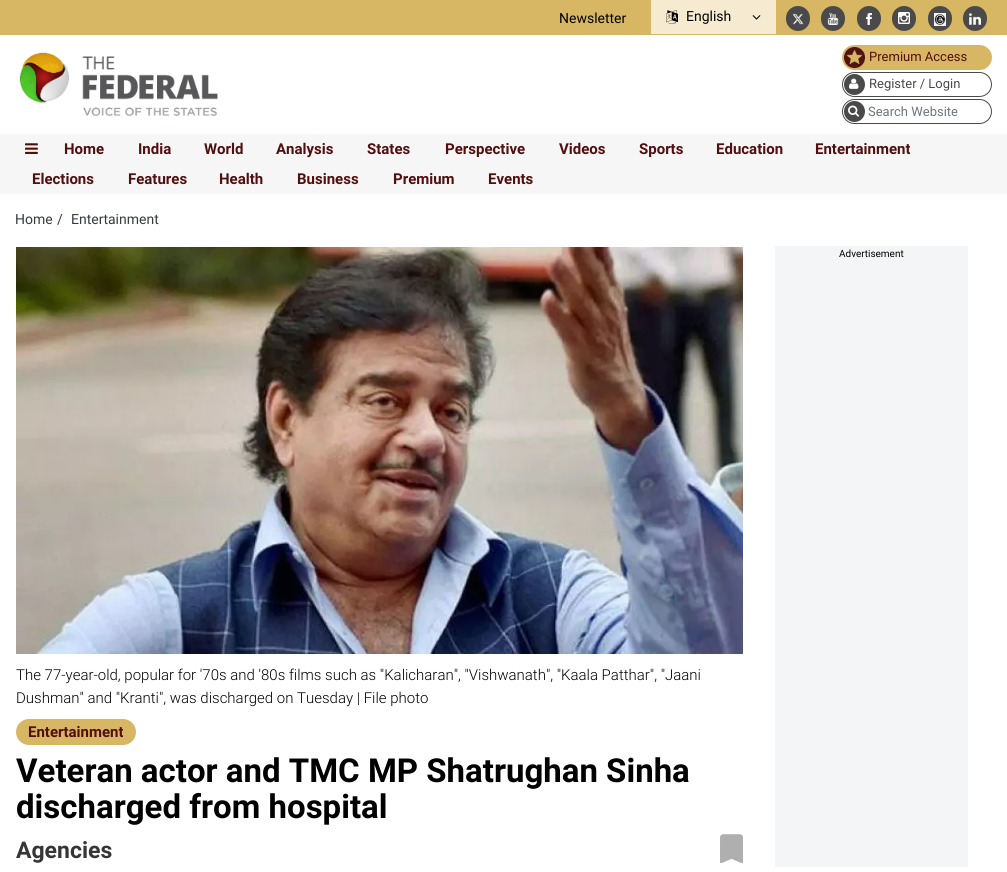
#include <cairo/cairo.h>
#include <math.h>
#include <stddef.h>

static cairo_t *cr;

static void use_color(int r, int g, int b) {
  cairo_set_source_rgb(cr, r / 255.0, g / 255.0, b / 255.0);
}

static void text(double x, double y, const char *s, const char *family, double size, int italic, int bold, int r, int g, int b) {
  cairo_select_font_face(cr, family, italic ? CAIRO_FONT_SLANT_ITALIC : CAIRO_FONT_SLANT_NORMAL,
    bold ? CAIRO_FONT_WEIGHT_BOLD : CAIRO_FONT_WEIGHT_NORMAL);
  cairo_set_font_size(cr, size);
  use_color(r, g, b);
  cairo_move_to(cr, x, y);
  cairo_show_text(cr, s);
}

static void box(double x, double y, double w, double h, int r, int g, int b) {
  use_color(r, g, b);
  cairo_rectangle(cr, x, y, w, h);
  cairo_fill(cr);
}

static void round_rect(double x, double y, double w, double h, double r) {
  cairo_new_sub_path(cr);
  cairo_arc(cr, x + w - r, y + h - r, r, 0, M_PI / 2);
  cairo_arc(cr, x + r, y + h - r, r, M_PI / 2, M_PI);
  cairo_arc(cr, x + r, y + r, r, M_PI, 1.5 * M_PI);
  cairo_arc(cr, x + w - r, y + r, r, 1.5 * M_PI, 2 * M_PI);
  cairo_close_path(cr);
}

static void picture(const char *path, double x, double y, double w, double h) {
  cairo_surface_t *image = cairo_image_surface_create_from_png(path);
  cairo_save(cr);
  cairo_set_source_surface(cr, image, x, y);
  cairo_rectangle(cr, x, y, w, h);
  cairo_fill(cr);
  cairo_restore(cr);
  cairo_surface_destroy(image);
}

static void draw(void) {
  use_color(255, 255, 255);
  cairo_paint(cr);
  box(0, 0, 1007, 35, 215, 183, 99);
  box(651, 0, 125, 34, 246, 235, 208);
  picture("img_01.png", 666, 10, 12, 14);
  picture("img_02.png", 752, 15, 9, 5);
  use_color(74, 74, 74);
  round_rect(786, 6, 24, 25, 12);
  cairo_fill(cr);
  picture("img_03.png", 792, 13, 12, 12);
  round_rect(821, 6, 24, 25, 12);
  cairo_fill(cr);
  picture("img_04.png", 827, 13, 12, 12);
  round_rect(857, 6, 24, 25, 12);
  cairo_fill(cr);
  picture("img_05.png", 866, 13, 6, 12);
  round_rect(892, 6, 24, 25, 12);
  cairo_fill(cr);
  picture("img_06.png", 898, 12, 12, 12);
  round_rect(928, 6, 24, 25, 12);
  cairo_fill(cr);
  picture("img_07.png", 934, 13, 12, 13);
  round_rect(963, 6, 24, 25, 12);
  cairo_fill(cr);
  picture("img_08.png", 969, 13, 12, 12);
  picture("img_09.png", 19, 52, 199, 64);
  use_color(215, 183, 99);
  round_rect(842, 45, 150, 25, 12.5);
  cairo_fill(cr);
  picture("img_10.png", 844, 47, 21, 21);
  round_rect(842.5, 72.5, 149, 24, 12);
  use_color(74, 74, 74);
  cairo_set_line_width(cr, 1);
  cairo_stroke(cr);
  cairo_arc(cr, 854.5, 84.5, 10.5, 0, 2 * M_PI);
  cairo_fill(cr);
  picture("img_11.png", 849, 78, 10, 11);
  round_rect(842.5, 99.5, 149, 24, 12);
  cairo_stroke(cr);
  cairo_arc(cr, 854.5, 111.5, 10.5, 0, 2 * M_PI);
  cairo_fill(cr);
  picture("img_12.png", 848, 105, 12, 12);
  box(0, 134, 1007, 60, 246, 246, 246);
  picture("img_13.png", 25, 143, 13, 11);
  box(775, 246, 193, 621, 244, 245, 247);
  picture("img_14.png", 16, 247, 727, 407);
  use_color(215, 183, 99);
  round_rect(16, 719, 120, 26, 13);
  cairo_fill(cr);
  picture("img_15.png", 720, 834, 23, 29);
  text(559, 23, "Newsletter", "Roboto", 14, 0, 0, 0, 0, 0);
  text(686, 21, "English", "Roboto", 14, 0, 0, 0, 0, 0);
  text(869, 61, "Premium Access", "Roboto", 13, 0, 0, 82, 15, 15);
  text(869, 88, "Register / Login", "Roboto", 13, 0, 0, 74, 74, 74);
  text(868, 116, "Search Website", "Roboto", 13, 0, 0, 108, 117, 125);
  text(64, 154, "Home", "Roboto", 15, 0, 1, 82, 15, 15);
  text(138, 154, "India", "Roboto", 15, 0, 1, 82, 15, 15);
  text(204, 154, "World", "Roboto", 15, 0, 1, 82, 15, 15);
  text(276, 154, "Analysis", "Roboto", 15, 0, 1, 82, 15, 15);
  text(367, 154, "States", "Roboto", 15, 0, 1, 82, 15, 15);
  text(445, 154, "Perspective", "Roboto", 15, 0, 1, 82, 15, 15);
  text(559, 154, "Videos", "Roboto", 15, 0, 1, 82, 15, 15);
  text(639, 154, "Sports", "Roboto", 15, 0, 1, 82, 15, 15);
  text(716, 154, "Education", "Roboto", 15, 0, 1, 82, 15, 15);
  text(815, 154, "Entertainment", "Roboto", 15, 0, 1, 82, 15, 15);
  text(32, 184, "Elections", "Roboto", 15, 0, 1, 82, 15, 15);
  text(128, 184, "Features", "Roboto", 15, 0, 1, 82, 15, 15);
  text(219, 184, "Health", "Roboto", 15, 0, 1, 82, 15, 15);
  text(297, 184, "Business", "Roboto", 15, 0, 1, 82, 15, 15);
  text(393, 184, "Premium", "Roboto", 15, 0, 1, 82, 15, 15);
  text(488, 184, "Events", "Roboto", 15, 0, 1, 82, 15, 15);
  text(15, 224, "Home", "Roboto", 14, 0, 0, 52, 58, 64);
  text(57, 224, "/", "Roboto", 14, 0, 0, 54, 54, 54);
  text(71, 224, "Entertainment", "Roboto", 14, 0, 0, 52, 58, 64);
  text(839, 257, "Advertisement", "Roboto", 10, 0, 0, 0, 0, 0);
  text(16, 680, "The 77-year-old, popular for '70s and '80s films such as \"Kalicharan\", \"Vishwanath\", \"Kaala Patthar\", \"Jaani", "Roboto Light", 15, 0, 0, 0, 0, 0);
  text(16, 703, "Dushman\" and \"Kranti\", was discharged on Tuesday | File photo", "Roboto Light", 15, 0, 0, 0, 0, 0);
  text(28, 737, "Entertainment", "Roboto", 15, 0, 1, 82, 15, 15);
  text(16, 782, "Veteran actor and TMC MP Shatrughan Sinha", "Roboto", 33, 0, 1, 0, 0, 0);
  text(16, 818, "discharged from hospital", "Roboto", 33, 0, 1, 0, 0, 0);
  text(16, 858, "Agencies", "Roboto", 23, 0, 1, 54, 54, 54);
}

int main(void) {
  cairo_surface_t *surface = cairo_image_surface_create(CAIRO_FORMAT_RGB24, 1007, 872);
  cr = cairo_create(surface);
  cairo_font_options_t *options = cairo_font_options_create();
  cairo_font_options_set_hint_metrics(options, CAIRO_HINT_METRICS_OFF);
  cairo_font_options_set_hint_style(options, CAIRO_HINT_STYLE_NONE);
  cairo_set_font_options(cr, options);
  cairo_set_miter_limit(cr, 4);
  draw();
  cairo_surface_write_to_png(surface, "out.png");
  cairo_font_options_destroy(options);
  cairo_destroy(cr);
  cairo_surface_destroy(surface);
  return 0;
}
